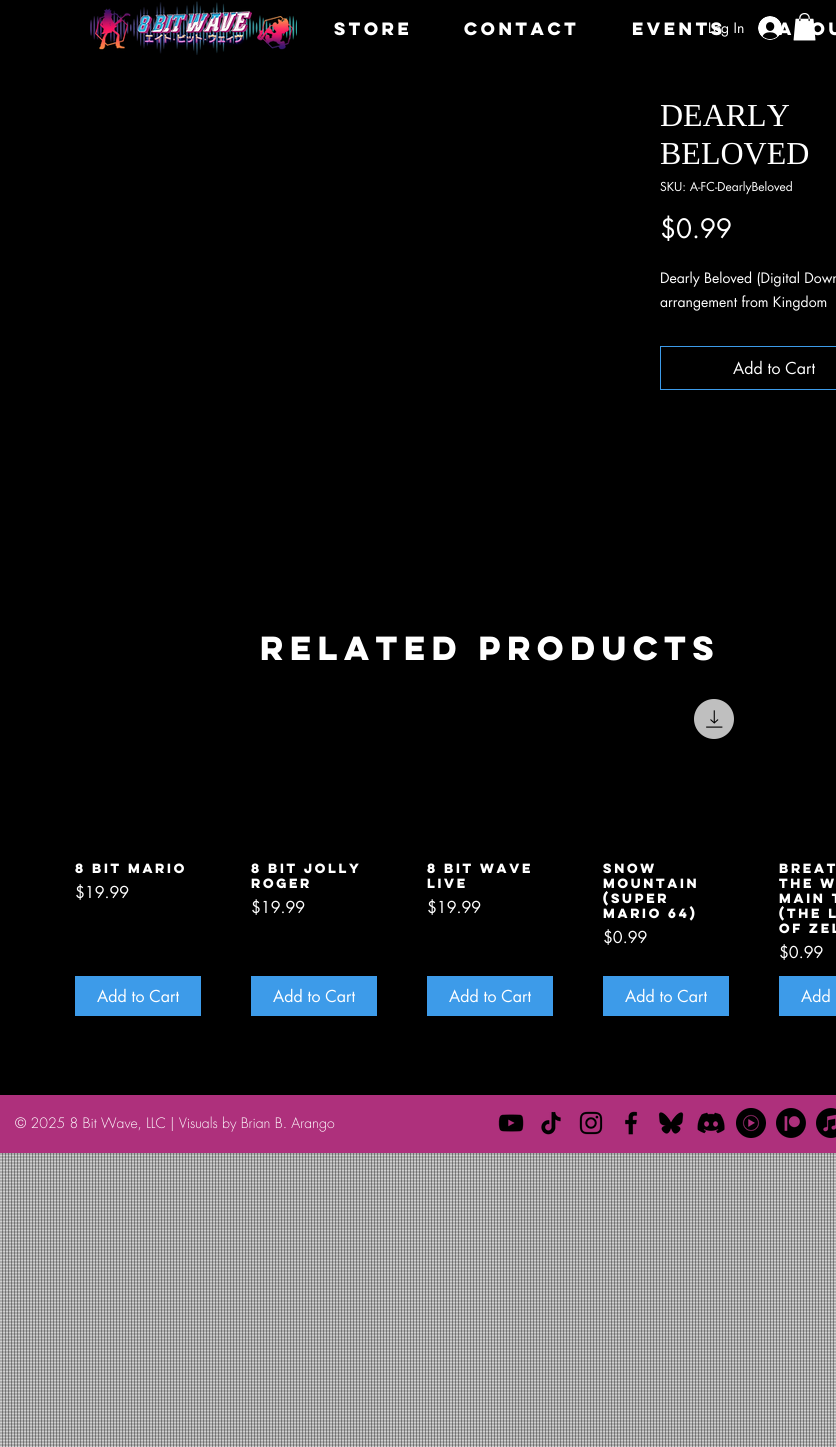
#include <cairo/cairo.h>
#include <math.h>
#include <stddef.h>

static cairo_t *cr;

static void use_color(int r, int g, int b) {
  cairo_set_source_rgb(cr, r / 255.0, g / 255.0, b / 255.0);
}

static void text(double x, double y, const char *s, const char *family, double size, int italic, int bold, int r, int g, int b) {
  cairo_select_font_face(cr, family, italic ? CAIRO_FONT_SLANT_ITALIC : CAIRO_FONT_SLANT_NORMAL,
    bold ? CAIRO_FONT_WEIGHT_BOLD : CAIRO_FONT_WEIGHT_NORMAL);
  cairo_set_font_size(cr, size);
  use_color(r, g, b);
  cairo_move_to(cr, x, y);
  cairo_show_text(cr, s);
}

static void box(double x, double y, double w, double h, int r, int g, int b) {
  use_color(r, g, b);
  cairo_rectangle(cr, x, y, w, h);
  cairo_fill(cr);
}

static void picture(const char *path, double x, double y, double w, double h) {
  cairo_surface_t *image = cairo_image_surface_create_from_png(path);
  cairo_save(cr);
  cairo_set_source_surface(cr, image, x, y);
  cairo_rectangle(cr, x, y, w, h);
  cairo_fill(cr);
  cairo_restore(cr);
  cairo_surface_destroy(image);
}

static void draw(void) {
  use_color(210, 210, 210);
  cairo_paint(cr);
  box(0, 0, 836, 1095, 0, 0, 0);
  picture("img_01.png", 90, 1, 207, 54);
  cairo_rectangle(cr, 660.5, 346.5, 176, 43);
  use_color(61, 155, 233);
  cairo_set_line_width(cr, 1);
  cairo_stroke(cr);
  box(75, 976, 126, 40, 61, 155, 233);
  box(251, 976, 126, 40, 61, 155, 233);
  box(427, 976, 126, 40, 61, 155, 233);
  use_color(191, 191, 191);
  cairo_arc(cr, 714, 719, 20, 0, 2 * M_PI);
  cairo_fill(cr);
  picture("img_04.png", 706, 710, 17, 18);
  box(603, 976, 126, 40, 61, 155, 233);
  box(779, 976, 57, 40, 61, 155, 233);
  box(0, 1095, 836, 58, 174, 48, 124);
  picture("img_05.png", 498, 1114, 26, 18);
  picture("img_06.png", 541, 1111, 20, 24);
  picture("img_07.png", 579, 1111, 24, 24);
  picture("img_08.png", 625, 1111, 13, 24);
  picture("img_09.png", 658, 1112, 26, 22);
  picture("img_10.png", 697, 1112, 28, 22);
  picture("img_11.png", 736, 1108, 30, 30);
  picture("img_12.png", 776, 1108, 30, 30);
  picture("img_13.png", 816, 1108, 20, 30);
  picture("img_14.png", 0, 1153, 836, 294);
  text(334, 35, "Store", "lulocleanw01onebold", 16, 0, 1, 255, 255, 255);
  text(464, 35, "Contact", "lulocleanw01onebold", 16, 0, 1, 255, 255, 255);
  text(632, 35, "Events", "lulocleanw01onebold", 16, 0, 1, 255, 255, 255);
  text(778, 35, "Abou", "lulocleanw01onebold", 16, 0, 1, 255, 255, 255);
  text(708, 33, "Log In", "futura", 14, 0, 0, 255, 255, 255);
  picture("img_02.png", 758, 16, 24, 24);
  picture("img_03.png", 793, 13, 23, 28);
  text(660, 126, "DEARLY", "Liberation Serif", 32, 0, 0, 255, 255, 255);
  text(660, 164, "BELOVED", "Liberation Serif", 32, 0, 0, 255, 255, 255);
  text(660, 191, "SKU: A-FC-DearlyBeloved", "futura", 12, 0, 0, 255, 255, 255);
  text(660, 238, "$0.99", "futura", 26, 0, 0, 255, 255, 255);
  text(660, 283, "Dearly Beloved (Digital Down", "futura", 14, 0, 0, 255, 255, 255);
  text(660, 307, "arrangement from Kingdom", "futura", 14, 0, 0, 255, 255, 255);
  text(733, 374, "Add to Cart", "futura", 16, 0, 0, 255, 255, 255);
  text(260, 660, "Related products", "lulocleanw01onebold", 30, 0, 1, 255, 255, 255);
  text(75, 873, "8 Bit Mario", "lulocleanw01onebold", 12, 0, 1, 255, 255, 255);
  text(75, 898, "$19.99", "futura", 16, 0, 0, 255, 255, 255);
  text(97, 1002, "Add to Cart", "futura", 16, 0, 0, 255, 255, 255);
  text(251, 873, "8 Bit Jolly", "lulocleanw01onebold", 12, 0, 1, 255, 255, 255);
  text(251, 888, "Roger", "lulocleanw01onebold", 12, 0, 1, 255, 255, 255);
  text(251, 913, "$19.99", "futura", 16, 0, 0, 255, 255, 255);
  text(273, 1002, "Add to Cart", "futura", 16, 0, 0, 255, 255, 255);
  text(427, 873, "8 Bit Wave", "lulocleanw01onebold", 12, 0, 1, 255, 255, 255);
  text(427, 888, "LIVE", "lulocleanw01onebold", 12, 0, 1, 255, 255, 255);
  text(427, 913, "$19.99", "futura", 16, 0, 0, 255, 255, 255);
  text(449, 1002, "Add to Cart", "futura", 16, 0, 0, 255, 255, 255);
  text(603, 873, "Snow", "lulocleanw01onebold", 12, 0, 1, 255, 255, 255);
  text(603, 888, "Mountain", "lulocleanw01onebold", 12, 0, 1, 255, 255, 255);
  text(603, 903, "(Super", "lulocleanw01onebold", 12, 0, 1, 255, 255, 255);
  text(603, 918, "Mario 64)", "lulocleanw01onebold", 12, 0, 1, 255, 255, 255);
  text(603, 943, "$0.99", "futura", 16, 0, 0, 255, 255, 255);
  text(625, 1002, "Add to Cart", "futura", 16, 0, 0, 255, 255, 255);
  text(779, 873, "Breat", "lulocleanw01onebold", 12, 0, 1, 255, 255, 255);
  text(779, 888, "the W", "lulocleanw01onebold", 12, 0, 1, 255, 255, 255);
  text(779, 903, "Main T", "lulocleanw01onebold", 12, 0, 1, 255, 255, 255);
  text(779, 918, "(The L", "lulocleanw01onebold", 12, 0, 1, 255, 255, 255);
  text(779, 933, "of Zel", "lulocleanw01onebold", 12, 0, 1, 255, 255, 255);
  text(779, 958, "$0.99", "futura", 16, 0, 0, 255, 255, 255);
  text(801, 1002, "Add", "futura", 16, 0, 0, 255, 255, 255);
  text(15, 1128, "© 2025 8 Bit Wave, LLC | Visuals by Brian B. Arango", "futura Light", 14, 0, 0, 255, 255, 255);
}

int main(void) {
  cairo_surface_t *surface = cairo_image_surface_create(CAIRO_FORMAT_RGB24, 836, 1447);
  cr = cairo_create(surface);
  cairo_font_options_t *options = cairo_font_options_create();
  cairo_font_options_set_hint_metrics(options, CAIRO_HINT_METRICS_OFF);
  cairo_font_options_set_hint_style(options, CAIRO_HINT_STYLE_NONE);
  cairo_set_font_options(cr, options);
  cairo_set_miter_limit(cr, 4);
  draw();
  cairo_surface_write_to_png(surface, "out.png");
  cairo_font_options_destroy(options);
  cairo_destroy(cr);
  cairo_surface_destroy(surface);
  return 0;
}
